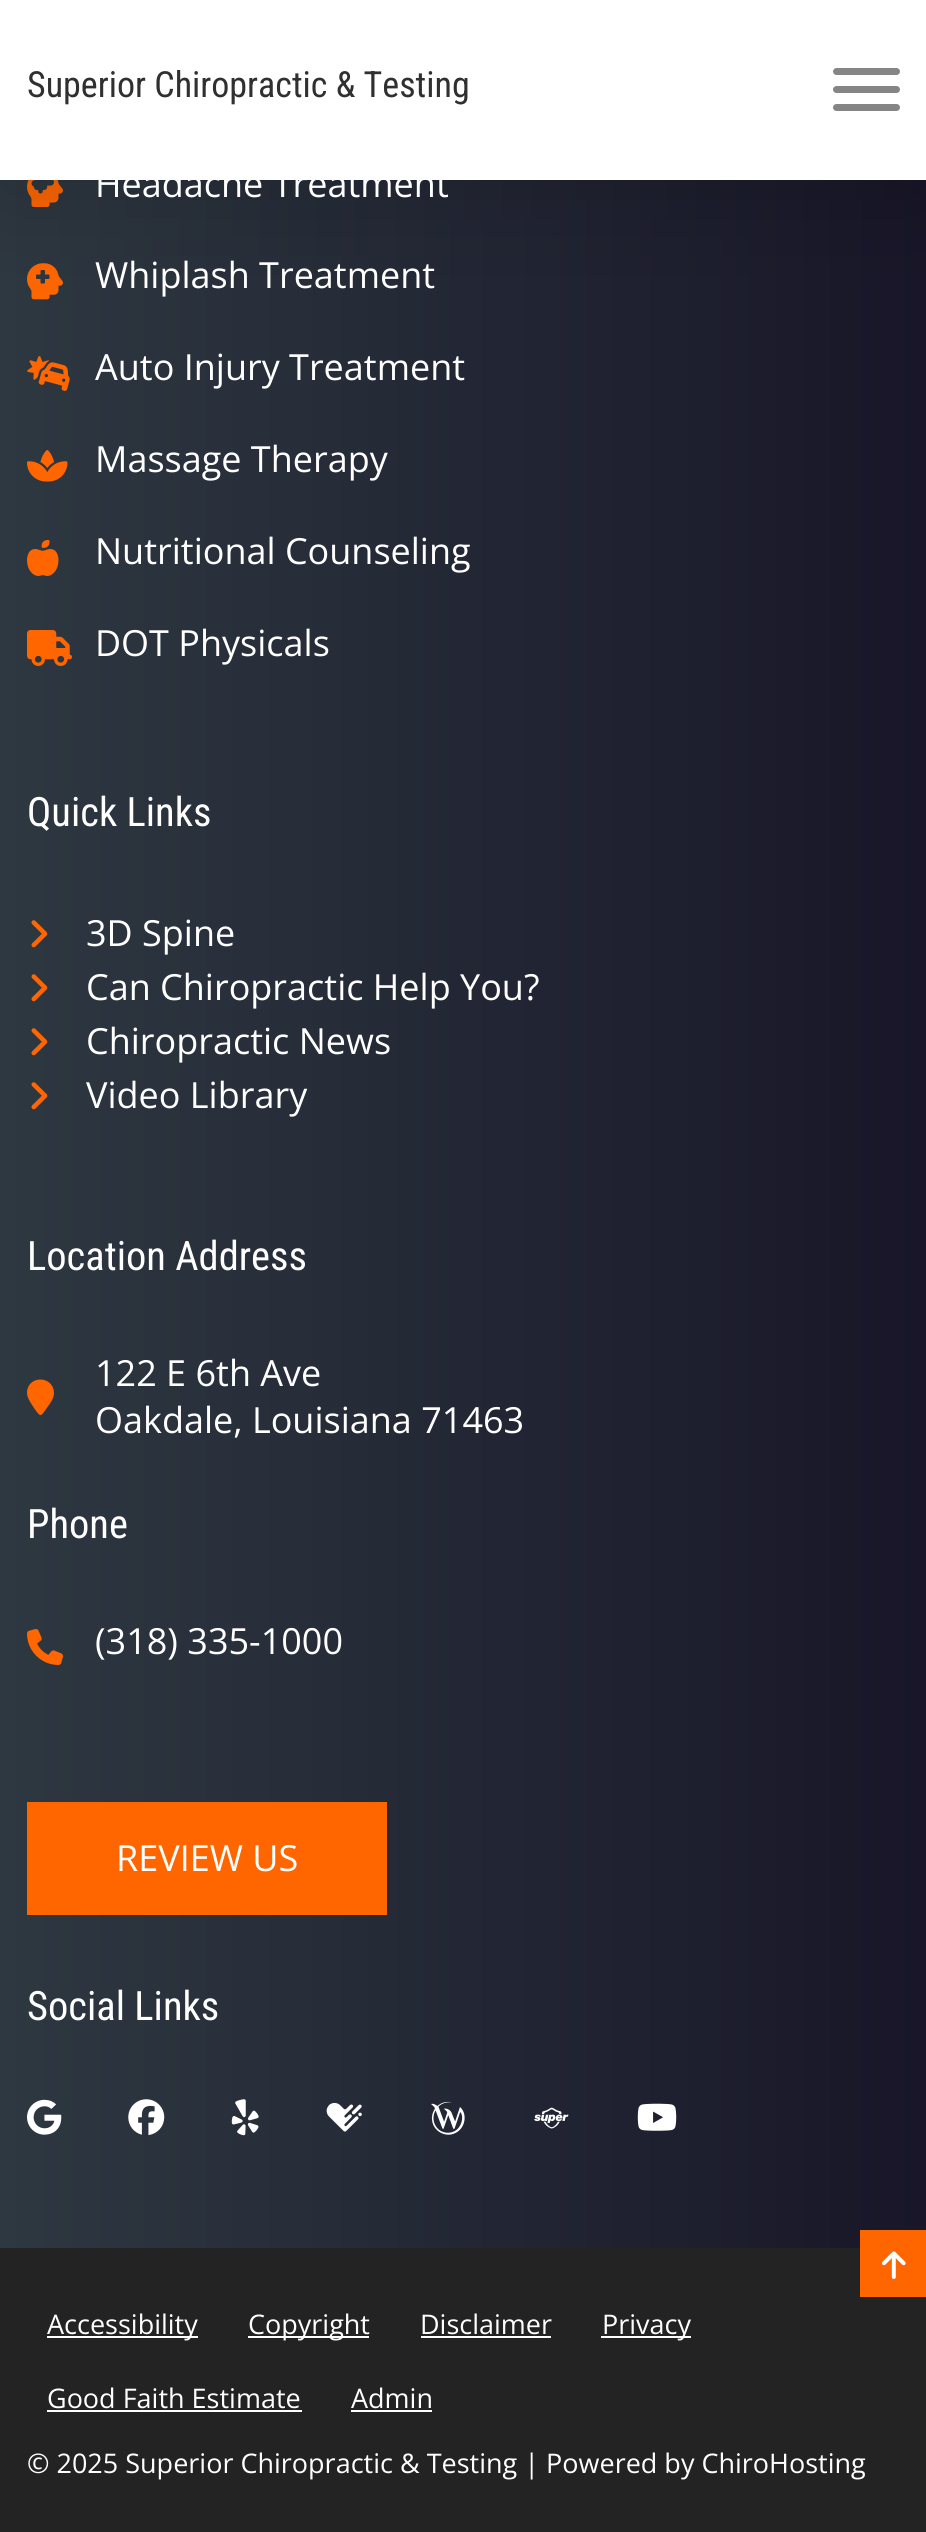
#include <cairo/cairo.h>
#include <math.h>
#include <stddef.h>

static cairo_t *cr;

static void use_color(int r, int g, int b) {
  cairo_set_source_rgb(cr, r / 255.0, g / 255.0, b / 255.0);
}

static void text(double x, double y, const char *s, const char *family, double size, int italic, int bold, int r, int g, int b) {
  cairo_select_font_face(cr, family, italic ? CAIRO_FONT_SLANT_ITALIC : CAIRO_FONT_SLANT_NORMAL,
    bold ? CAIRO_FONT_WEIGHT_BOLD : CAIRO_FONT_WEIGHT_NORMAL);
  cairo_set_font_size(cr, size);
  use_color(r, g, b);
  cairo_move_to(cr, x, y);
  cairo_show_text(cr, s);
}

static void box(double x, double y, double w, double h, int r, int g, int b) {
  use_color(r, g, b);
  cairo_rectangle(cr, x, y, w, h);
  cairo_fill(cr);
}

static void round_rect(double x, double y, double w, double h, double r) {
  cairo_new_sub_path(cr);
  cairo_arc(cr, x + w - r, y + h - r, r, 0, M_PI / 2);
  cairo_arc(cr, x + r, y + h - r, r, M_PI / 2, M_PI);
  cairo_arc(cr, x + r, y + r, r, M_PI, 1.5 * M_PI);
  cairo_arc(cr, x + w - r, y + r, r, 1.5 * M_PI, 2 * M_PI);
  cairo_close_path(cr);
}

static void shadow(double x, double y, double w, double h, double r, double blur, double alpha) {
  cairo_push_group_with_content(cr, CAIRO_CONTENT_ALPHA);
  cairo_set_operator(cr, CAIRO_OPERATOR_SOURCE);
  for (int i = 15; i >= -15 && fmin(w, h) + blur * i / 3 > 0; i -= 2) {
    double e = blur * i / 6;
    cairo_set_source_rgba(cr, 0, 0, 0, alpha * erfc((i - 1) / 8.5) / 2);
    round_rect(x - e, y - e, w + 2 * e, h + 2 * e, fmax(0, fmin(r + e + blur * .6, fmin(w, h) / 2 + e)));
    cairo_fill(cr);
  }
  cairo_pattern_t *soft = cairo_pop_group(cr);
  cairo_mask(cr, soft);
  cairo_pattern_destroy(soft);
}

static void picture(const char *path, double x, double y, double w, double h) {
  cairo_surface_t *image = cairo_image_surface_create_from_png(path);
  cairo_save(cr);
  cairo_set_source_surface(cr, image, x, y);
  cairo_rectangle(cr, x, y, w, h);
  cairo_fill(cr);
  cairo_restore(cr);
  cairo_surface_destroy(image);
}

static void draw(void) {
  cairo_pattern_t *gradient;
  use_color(35, 35, 35);
  cairo_paint(cr);
  gradient = cairo_pattern_create_linear(0, 980, 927, 980);
  cairo_pattern_add_color_stop_rgba(gradient, 0, 0.18, 0.22, 0.255, 1);
  cairo_pattern_add_color_stop_rgba(gradient, 1, 0.094, 0.086, 0.157, 1);
  cairo_set_source(cr, gradient);
  cairo_pattern_destroy(gradient);
  cairo_rectangle(cr, 0, 180, 926, 2068);
  cairo_fill(cr);
  picture("img_01.png", 27, 180, 36, 27);
  picture("img_02.png", 27, 263, 36, 37);
  picture("img_03.png", 27, 356, 43, 35);
  use_color(0, 0, 0);
  shadow(0, 11, 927, 180, 0, 56, 0.2);
  box(0, 0, 926, 180, 255, 255, 255);
  use_color(133, 133, 133);
  round_rect(833, 68, 67, 7, 3.5);
  cairo_fill(cr);
  round_rect(833, 86, 67, 7, 3.5);
  cairo_fill(cr);
  round_rect(833, 104, 67, 7, 3.5);
  cairo_fill(cr);
  picture("img_04.png", 27, 450, 41, 32);
  picture("img_05.png", 27, 540, 32, 36);
  picture("img_06.png", 27, 630, 45, 36);
  picture("img_07.png", 31, 920, 17, 28);
  picture("img_07.png", 31, 974, 17, 28);
  picture("img_07.png", 31, 1028, 17, 28);
  picture("img_07.png", 31, 1082, 17, 28);
  use_color(255, 102, 0);
  cairo_new_path(cr);
  cairo_move_to(cr, 54, 1393);
  cairo_curve_to(cr, 54, 1398, 50.5, 1403, 47.5, 1407);
  cairo_curve_to(cr, 40.5, 1417, 41, 1418, 34, 1408);
  cairo_curve_to(cr, 31.5, 1404, 27, 1398, 27, 1393);
  cairo_curve_to(cr, 27, 1375, 53.5, 1375, 54, 1393);
  cairo_close_path(cr);
  cairo_fill(cr);
  picture("img_08.png", 27, 1629, 36, 36);
  box(27, 1802, 360, 113, 255, 102, 0);
  picture("img_09.png", 27, 2099, 35, 36);
  picture("img_10.png", 128, 2099, 37, 37);
  picture("img_11.png", 231, 2099, 28, 37);
  picture("img_12.png", 326, 2102, 36, 30);
  picture("img_13.png", 431, 2101, 34, 34);
  picture("img_14.png", 534, 2107, 35, 22);
  picture("img_15.png", 637, 2103, 40, 28);
  box(47, 2336, 151, 2, 255, 255, 255);
  box(248, 2336, 121, 2, 255, 255, 255);
  box(421, 2336, 130, 2, 255, 255, 255);
  box(601, 2336, 90, 2, 255, 255, 255);
  box(47, 2410, 255, 2, 255, 255, 255);
  box(351, 2410, 81, 2, 255, 255, 255);
  box(860, 2230, 66, 67, 255, 102, 0);
  picture("img_16.png", 882, 2251, 24, 28);
  text(27, 97, "Superior Chiropractic & Testing", "Roboto Condensed", 36, 0, 0, 48, 48, 48);
  text(95, 197, "Headache Treatment", "Open Sans", 36, 0, 0, 255, 255, 255);
  text(95, 288, "Whiplash Treatment", "Open Sans", 36, 0, 0, 255, 255, 255);
  text(95, 380, "Auto Injury Treatment", "Open Sans", 36, 0, 0, 255, 255, 255);
  text(95, 472, "Massage Therapy", "Open Sans", 36, 0, 0, 255, 255, 255);
  text(95, 564, "Nutritional Counseling", "Open Sans", 36, 0, 0, 255, 255, 255);
  text(95, 656, "DOT Physicals", "Open Sans", 36, 0, 0, 255, 255, 255);
  text(27, 826, "Quick Links", "Roboto Condensed", 40.5, 0, 0, 255, 255, 255);
  text(86, 946, "3D Spine", "Open Sans", 36, 0, 0, 255, 255, 255);
  text(86, 1000, "Can Chiropractic Help You?", "Open Sans", 36, 0, 0, 255, 255, 255);
  text(86, 1054, "Chiropractic News", "Open Sans", 36, 0, 0, 255, 255, 255);
  text(86, 1108, "Video Library", "Open Sans", 36, 0, 0, 255, 255, 255);
  text(27, 1270, "Location Address", "Roboto Condensed", 40.5, 0, 0, 255, 255, 255);
  text(95, 1386, "122 E 6th Ave", "Open Sans", 36, 0, 0, 255, 255, 255);
  text(95, 1433, "Oakdale, Louisiana 71463", "Open Sans", 36, 0, 0, 255, 255, 255);
  text(27, 1538, "Phone", "Roboto Condensed", 40.5, 0, 0, 255, 255, 255);
  text(95, 1654, "(318) 335-1000", "Open Sans", 36, 0, 0, 255, 255, 255);
  text(116, 1871, "REVIEW US", "Open Sans", 36, 0, 0, 255, 255, 255);
  text(27, 2020, "Social Links", "Roboto Condensed", 40.5, 0, 0, 255, 255, 255);
  text(47, 2334, "Accessibility", "Open Sans", 27, 0, 0, 255, 255, 255);
  text(248, 2334, "Copyright", "Open Sans", 27, 0, 0, 255, 255, 255);
  text(420, 2334, "Disclaimer", "Open Sans", 27, 0, 0, 255, 255, 255);
  text(602, 2334, "Privacy", "Open Sans", 27, 0, 0, 255, 255, 255);
  text(47, 2408, "Good Faith Estimate", "Open Sans", 27, 0, 0, 255, 255, 255);
  text(351, 2408, "Admin", "Open Sans", 27, 0, 0, 255, 255, 255);
  text(27, 2473, "© 2025 Superior Chiropractic & Testing | Powered by ChiroHosting", "Open Sans", 27, 0, 0, 255, 255, 255);
}

int main(void) {
  cairo_surface_t *surface = cairo_image_surface_create(CAIRO_FORMAT_RGB24, 926, 2532);
  cr = cairo_create(surface);
  cairo_font_options_t *options = cairo_font_options_create();
  cairo_font_options_set_hint_metrics(options, CAIRO_HINT_METRICS_OFF);
  cairo_font_options_set_hint_style(options, CAIRO_HINT_STYLE_NONE);
  cairo_set_font_options(cr, options);
  cairo_set_miter_limit(cr, 4);
  draw();
  cairo_surface_write_to_png(surface, "out.png");
  cairo_font_options_destroy(options);
  cairo_destroy(cr);
  cairo_surface_destroy(surface);
  return 0;
}
